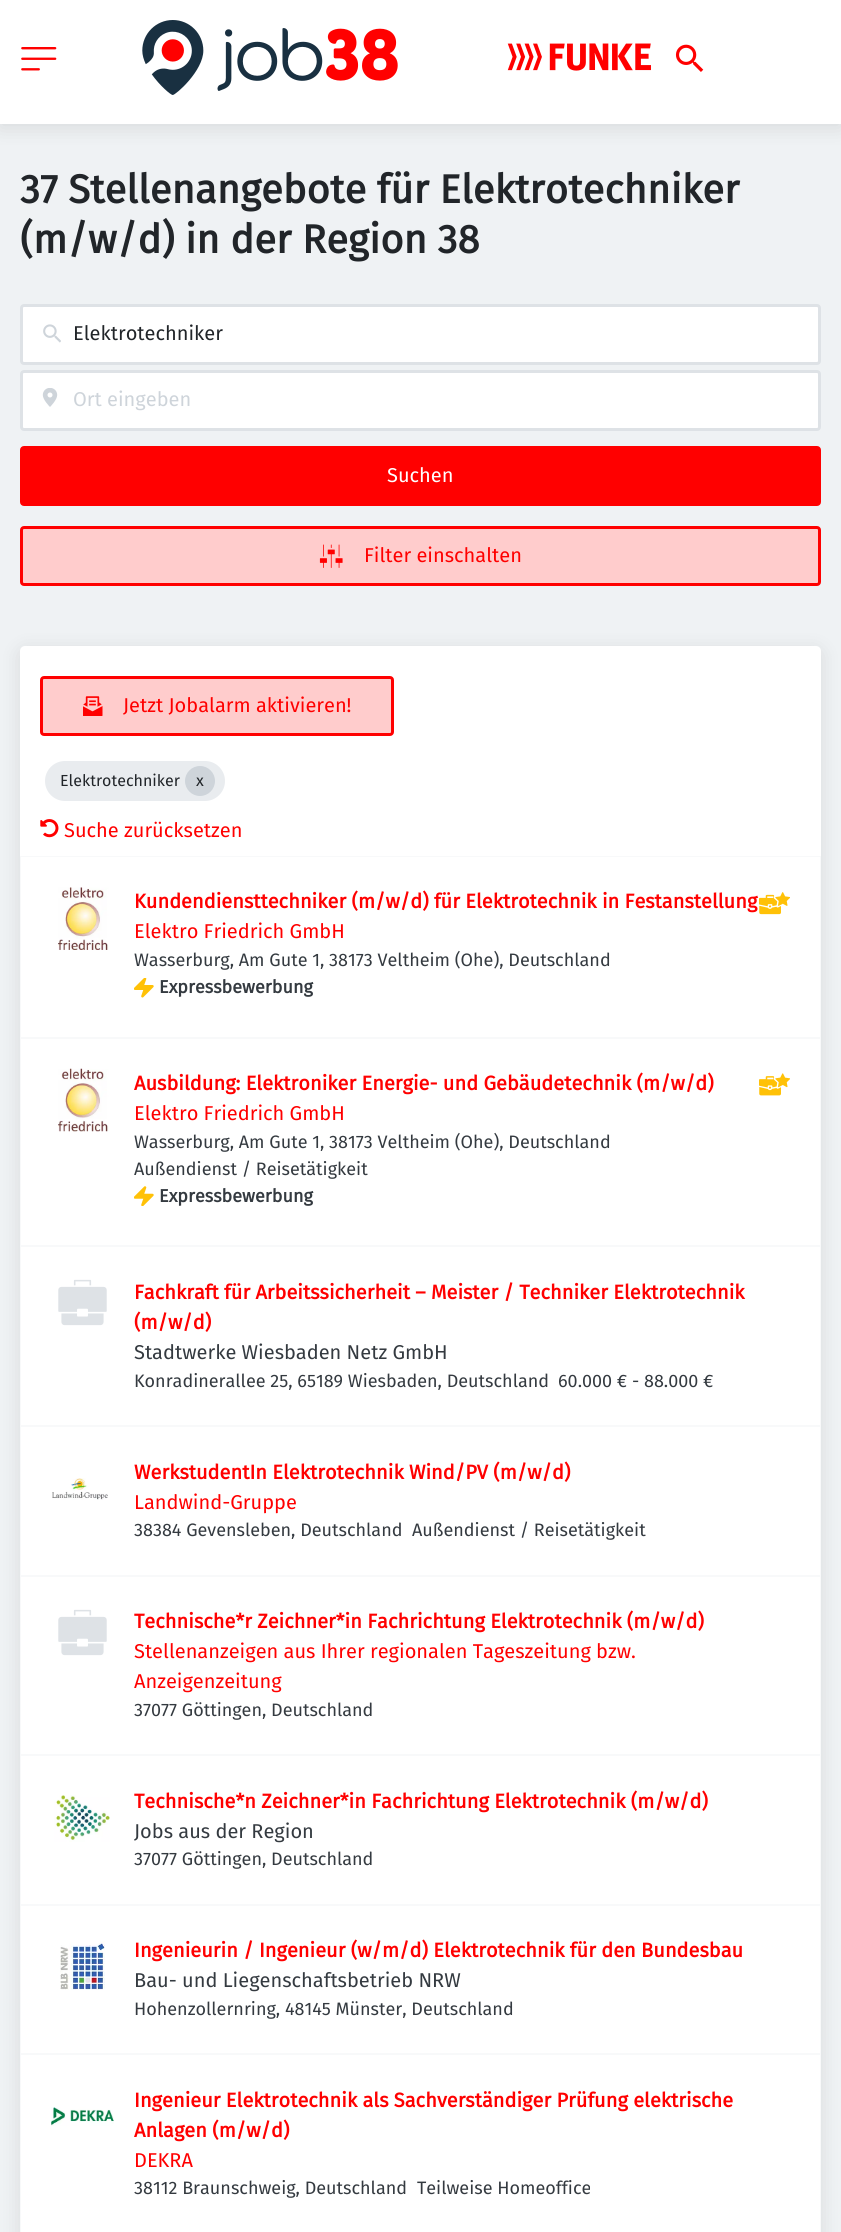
#include <cairo/cairo.h>
#include <math.h>
#include <stddef.h>

static cairo_t *cr;

static void use_color(int r, int g, int b) {
  cairo_set_source_rgb(cr, r / 255.0, g / 255.0, b / 255.0);
}

static void text(double x, double y, const char *s, const char *family, double size, int italic, int bold, int r, int g, int b) {
  cairo_select_font_face(cr, family, italic ? CAIRO_FONT_SLANT_ITALIC : CAIRO_FONT_SLANT_NORMAL,
    bold ? CAIRO_FONT_WEIGHT_BOLD : CAIRO_FONT_WEIGHT_NORMAL);
  cairo_set_font_size(cr, size);
  use_color(r, g, b);
  cairo_move_to(cr, x, y);
  cairo_show_text(cr, s);
}

static void box(double x, double y, double w, double h, int r, int g, int b) {
  use_color(r, g, b);
  cairo_rectangle(cr, x, y, w, h);
  cairo_fill(cr);
}

static void round_rect(double x, double y, double w, double h, double r) {
  cairo_new_sub_path(cr);
  cairo_arc(cr, x + w - r, y + h - r, r, 0, M_PI / 2);
  cairo_arc(cr, x + r, y + h - r, r, M_PI / 2, M_PI);
  cairo_arc(cr, x + r, y + r, r, M_PI, 1.5 * M_PI);
  cairo_arc(cr, x + w - r, y + r, r, 1.5 * M_PI, 2 * M_PI);
  cairo_close_path(cr);
}

static void shadow(double x, double y, double w, double h, double r, double blur, double alpha) {
  cairo_push_group_with_content(cr, CAIRO_CONTENT_ALPHA);
  cairo_set_operator(cr, CAIRO_OPERATOR_SOURCE);
  for (int i = 15; i >= -15 && fmin(w, h) + blur * i / 3 > 0; i -= 2) {
    double e = blur * i / 6;
    cairo_set_source_rgba(cr, 0, 0, 0, alpha * erfc((i - 1) / 8.5) / 2);
    round_rect(x - e, y - e, w + 2 * e, h + 2 * e, fmax(0, fmin(r + e + blur * .6, fmin(w, h) / 2 + e)));
    cairo_fill(cr);
  }
  cairo_pattern_t *soft = cairo_pop_group(cr);
  cairo_mask(cr, soft);
  cairo_pattern_destroy(soft);
}

static void picture(const char *path, double x, double y, double w, double h) {
  cairo_surface_t *image = cairo_image_surface_create_from_png(path);
  cairo_save(cr);
  cairo_set_source_surface(cr, image, x, y);
  cairo_rectangle(cr, x, y, w, h);
  cairo_fill(cr);
  cairo_restore(cr);
  cairo_surface_destroy(image);
}

static void draw(void) {
  use_color(239, 242, 244);
  cairo_paint(cr);
  use_color(0, 0, 0);
  shadow(0, 4, 841, 124, 0, 9.5, 0.1);
  box(0, 0, 841, 124, 255, 255, 255);
  picture("img_01.png", 21, 47, 36, 24);
  picture("img_02.png", 142, 20, 256, 75);
  picture("img_03.png", 507, 43, 144, 28);
  picture("img_04.png", 675, 44, 29, 28);
  round_rect(21.5, 305.5, 798, 58, 2.5);
  cairo_fill_preserve(cr);
  use_color(222, 226, 230);
  cairo_set_line_width(cr, 3);
  cairo_stroke(cr);
  picture("img_05.png", 43, 324, 18, 19);
  use_color(255, 255, 255);
  round_rect(21.5, 371.5, 798, 58, 2.5);
  cairo_fill_preserve(cr);
  use_color(222, 226, 230);
  cairo_stroke(cr);
  picture("img_06.png", 42, 388, 16, 19);
  use_color(255, 0, 0);
  round_rect(21.5, 447.5, 798, 57, 2.5);
  cairo_fill_preserve(cr);
  cairo_stroke(cr);
  use_color(255, 204, 204);
  round_rect(21.5, 527.5, 798, 57, 2.5);
  cairo_fill_preserve(cr);
  use_color(255, 0, 0);
  cairo_stroke(cr);
  picture("img_07.png", 319, 544, 24, 24);
  use_color(0, 0, 0);
  shadow(20, 650, 801, 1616, 5, 9.5, 0.1);
  use_color(255, 255, 255);
  round_rect(20, 646, 801, 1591, 5);
  cairo_fill(cr);
  use_color(255, 204, 204);
  round_rect(41.5, 677.5, 351, 57, 2.5);
  cairo_fill_preserve(cr);
  use_color(255, 0, 0);
  cairo_stroke(cr);
  picture("img_08.png", 83, 696, 20, 20);
  use_color(233, 236, 239);
  round_rect(45, 761, 180, 40, 20);
  cairo_fill(cr);
  use_color(206, 212, 218);
  cairo_arc(cr, 200, 781, 15, 0, 2 * M_PI);
  cairo_fill(cr);
  picture("img_09.png", 40, 819, 19, 19);
  cairo_rectangle(cr, 20.5, 856.5, 800, 181);
  use_color(248, 249, 250);
  cairo_set_line_width(cr, 1);
  cairo_stroke(cr);
  picture("img_10.png", 58, 887, 51, 63);
  picture("img_11.png", 134, 978, 20, 20);
  picture("img_12.png", 759, 892, 31, 23);
  cairo_rectangle(cr, 20.5, 1038.5, 800, 207);
  cairo_stroke(cr);
  picture("img_13.png", 58, 1068, 51, 64);
  picture("img_14.png", 134, 1186, 20, 20);
  picture("img_15.png", 759, 1073, 31, 23);
  cairo_rectangle(cr, 20.5, 1246.5, 800, 179);
  cairo_stroke(cr);
  picture("img_16.png", 58, 1279, 49, 47);
  cairo_rectangle(cr, 20.5, 1426.5, 800, 149);
  cairo_stroke(cr);
  picture("img_17.png", 52, 1478, 56, 22);
  cairo_rectangle(cr, 20.5, 1576.5, 800, 178);
  cairo_stroke(cr);
  picture("img_16.png", 58, 1609, 49, 47);
  cairo_rectangle(cr, 20.5, 1755.5, 800, 149);
  cairo_stroke(cr);
  picture("img_18.png", 54, 1795, 56, 47);
  cairo_rectangle(cr, 20.5, 1905.5, 800, 148);
  cairo_stroke(cr);
  picture("img_19.png", 60, 1941, 45, 49);
  cairo_rectangle(cr, 20.5, 2054.5, 800, 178);
  cairo_stroke(cr);
  picture("img_20.png", 51, 2107, 63, 19);
  text(20, 203, "37 Stellenangebote für Elektrotechniker", "Fira Sans", 40, 0, 1, 33, 37, 41);
  text(20, 253, "(m/w/d) in der Region 38", "Fira Sans", 40, 0, 1, 33, 37, 41);
  text(73, 340, "Elektrotechniker", "Fira Sans", 20, 0, 0, 33, 37, 41);
  text(73, 406, "Ort eingeben", "Fira Sans", 20, 0, 0, 206, 212, 218);
  text(387, 482, "Suchen", "Fira Sans", 20, 0, 0, 255, 255, 255);
  text(364, 562, "Filter einschalten", "Fira Sans", 20, 0, 0, 255, 0, 0);
  text(123, 712, "Jetzt Jobalarm aktivieren!", "Fira Sans", 20, 0, 0, 255, 0, 0);
  text(60, 786, "Elektrotechniker", "Fira Sans", 16, 0, 0, 33, 37, 41);
  text(196, 786, "x", "Fira Sans", 16, 0, 0, 33, 37, 41);
  text(64, 837, "Suche zurücksetzen", "Fira Sans", 20, 0, 0, 255, 0, 0);
  text(134, 908, "Kundendiensttechniker (m/w/d) für Elektrotechnik in Festanstellung", "Fira Sans", 20, 0, 1, 255, 0, 0);
  text(134, 938, "Elektro Friedrich GmbH", "Fira Sans", 20, 0, 0, 255, 0, 0);
  text(134, 966, "Wasserburg, Am Gute 1, 38173 Veltheim (Ohe), Deutschland", "Fira Sans", 18, 0, 0, 52, 58, 64);
  text(159, 993, "Expressbewerbung", "Fira Sans", 18, 0, 1, 52, 58, 64);
  text(134, 1090, "Ausbildung: Elektroniker Energie- und Gebäudetechnik (m/w/d)", "Fira Sans", 20, 0, 1, 255, 0, 0);
  text(134, 1120, "Elektro Friedrich GmbH", "Fira Sans", 20, 0, 0, 255, 0, 0);
  text(134, 1148, "Wasserburg, Am Gute 1, 38173 Veltheim (Ohe), Deutschland", "Fira Sans", 18, 0, 0, 52, 58, 64);
  text(134, 1175, "Außendienst / Reisetätigkeit", "Fira Sans", 18, 0, 0, 52, 58, 64);
  text(159, 1202, "Expressbewerbung", "Fira Sans", 18, 0, 1, 52, 58, 64);
  text(134, 1299, "Fachkraft für Arbeitssicherheit – Meister / Techniker Elektrotechnik", "Fira Sans", 20, 0, 1, 255, 0, 0);
  text(134, 1329, "(m/w/d)", "Fira Sans", 20, 0, 1, 255, 0, 0);
  text(134, 1359, "Stadtwerke Wiesbaden Netz GmbH", "Fira Sans", 20, 0, 0, 52, 58, 64);
  text(134, 1387, "Konradinerallee 25, 65189 Wiesbaden, Deutschland", "Fira Sans", 18, 0, 0, 52, 58, 64);
  text(558, 1387, "60.000 € - 88.000 €", "Fira Sans", 18, 0, 0, 52, 58, 64);
  text(134, 1479, "WerkstudentIn Elektrotechnik Wind/PV (m/w/d)", "Fira Sans", 20, 0, 1, 255, 0, 0);
  text(134, 1509, "Landwind-Gruppe", "Fira Sans", 20, 0, 0, 255, 0, 0);
  text(134, 1536, "38384 Gevensleben, Deutschland", "Fira Sans", 18, 0, 0, 52, 58, 64);
  text(412, 1536, "Außendienst / Reisetätigkeit", "Fira Sans", 18, 0, 0, 52, 58, 64);
  text(134, 1628, "Technische*r Zeichner*in Fachrichtung Elektrotechnik (m/w/d)", "Fira Sans", 20, 0, 1, 255, 0, 0);
  text(134, 1658, "Stellenanzeigen aus Ihrer regionalen Tageszeitung bzw.", "Fira Sans", 20, 0, 0, 255, 0, 0);
  text(134, 1688, "Anzeigenzeitung", "Fira Sans", 20, 0, 0, 255, 0, 0);
  text(134, 1716, "37077 Göttingen, Deutschland", "Fira Sans", 18, 0, 0, 52, 58, 64);
  text(134, 1808, "Technische*n Zeichner*in Fachrichtung Elektrotechnik (m/w/d)", "Fira Sans", 20, 0, 1, 255, 0, 0);
  text(134, 1838, "Jobs aus der Region", "Fira Sans", 20, 0, 0, 52, 58, 64);
  text(134, 1865, "37077 Göttingen, Deutschland", "Fira Sans", 18, 0, 0, 52, 58, 64);
  text(134, 1957, "Ingenieurin / Ingenieur (w/m/d) Elektrotechnik für den Bundesbau", "Fira Sans", 20, 0, 1, 255, 0, 0);
  text(134, 1987, "Bau- und Liegenschaftsbetrieb NRW", "Fira Sans", 20, 0, 0, 52, 58, 64);
  text(134, 2015, "Hohenzollernring, 48145 Münster, Deutschland", "Fira Sans", 18, 0, 0, 52, 58, 64);
  text(134, 2107, "Ingenieur Elektrotechnik als Sachverständiger Prüfung elektrische", "Fira Sans", 20, 0, 1, 255, 0, 0);
  text(134, 2137, "Anlagen (m/w/d)", "Fira Sans", 20, 0, 1, 255, 0, 0);
  text(134, 2167, "DEKRA", "Fira Sans", 20, 0, 0, 255, 0, 0);
  text(134, 2194, "38112 Braunschweig, Deutschland", "Fira Sans", 18, 0, 0, 52, 58, 64);
  text(417, 2194, "Teilweise Homeoffice", "Fira Sans", 18, 0, 0, 52, 58, 64);
}

int main(void) {
  cairo_surface_t *surface = cairo_image_surface_create(CAIRO_FORMAT_RGB24, 841, 2232);
  cr = cairo_create(surface);
  cairo_font_options_t *options = cairo_font_options_create();
  cairo_font_options_set_hint_metrics(options, CAIRO_HINT_METRICS_OFF);
  cairo_font_options_set_hint_style(options, CAIRO_HINT_STYLE_NONE);
  cairo_set_font_options(cr, options);
  cairo_set_miter_limit(cr, 4);
  draw();
  cairo_surface_write_to_png(surface, "out.png");
  cairo_font_options_destroy(options);
  cairo_destroy(cr);
  cairo_surface_destroy(surface);
  return 0;
}
